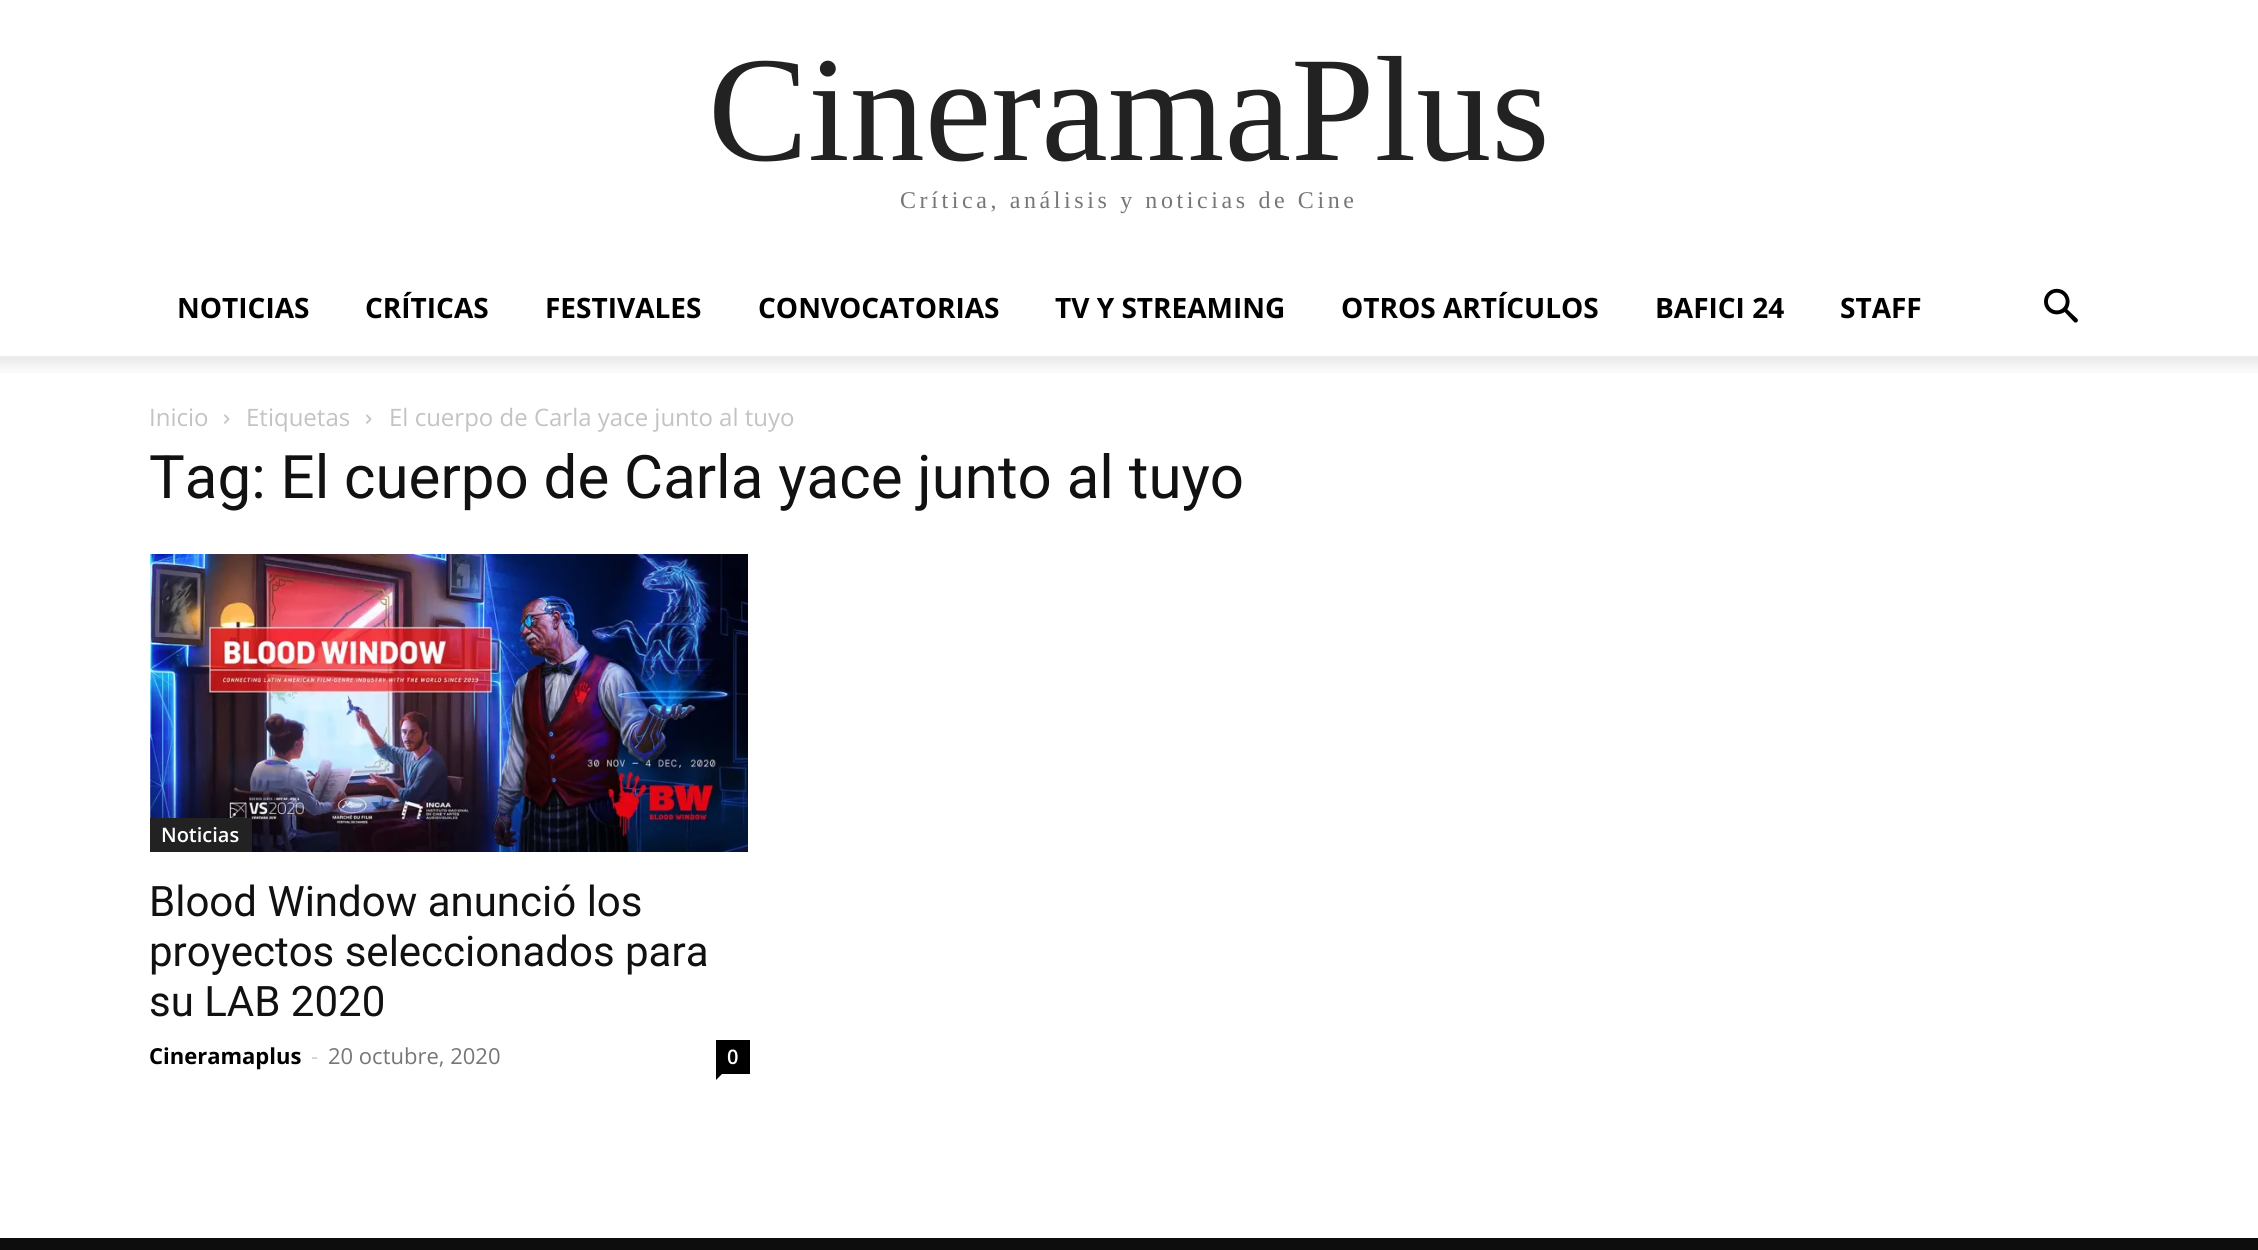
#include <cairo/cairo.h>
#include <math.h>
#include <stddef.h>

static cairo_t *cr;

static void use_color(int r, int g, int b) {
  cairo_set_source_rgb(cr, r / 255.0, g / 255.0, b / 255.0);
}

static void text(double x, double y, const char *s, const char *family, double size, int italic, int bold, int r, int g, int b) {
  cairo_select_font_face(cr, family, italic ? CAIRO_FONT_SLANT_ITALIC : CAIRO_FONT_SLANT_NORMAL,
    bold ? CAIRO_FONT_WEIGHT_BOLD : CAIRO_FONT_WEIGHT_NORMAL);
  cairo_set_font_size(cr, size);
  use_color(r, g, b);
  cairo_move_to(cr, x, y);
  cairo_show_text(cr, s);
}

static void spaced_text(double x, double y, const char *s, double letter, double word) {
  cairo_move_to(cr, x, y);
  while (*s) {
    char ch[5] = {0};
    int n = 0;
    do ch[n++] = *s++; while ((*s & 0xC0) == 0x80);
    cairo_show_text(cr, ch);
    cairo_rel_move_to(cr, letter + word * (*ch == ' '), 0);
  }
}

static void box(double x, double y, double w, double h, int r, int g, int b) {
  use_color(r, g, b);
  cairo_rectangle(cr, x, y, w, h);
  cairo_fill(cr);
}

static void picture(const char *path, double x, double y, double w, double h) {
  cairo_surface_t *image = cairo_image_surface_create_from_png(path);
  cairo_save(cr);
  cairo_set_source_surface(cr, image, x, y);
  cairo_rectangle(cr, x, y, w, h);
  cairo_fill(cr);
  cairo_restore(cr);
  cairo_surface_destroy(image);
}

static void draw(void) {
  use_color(255, 255, 255);
  cairo_paint(cr);
  picture("img_01.png", 2044, 288, 34, 35);
  picture("img_02.png", 0, 356, 2258, 17);
  picture("img_03.png", 224, 414, 6, 10);
  picture("img_03.png", 366, 414, 6, 10);
  picture("img_04.png", 150, 554, 598, 298);
  box(150, 818, 102, 34, 34, 34, 34);
  box(716, 1040, 34, 34, 0, 0, 0);
  cairo_new_path(cr);
  cairo_move_to(cr, 716, 1074);
  cairo_line_to(cr, 722, 1074);
  cairo_line_to(cr, 716, 1080);
  cairo_close_path(cr);
  cairo_fill(cr);
  box(0, 1238, 2258, 12, 13, 13, 13);
  text(708, 160, "CineramaPlus", "Liberation Serif", 150, 0, 0, 34, 34, 34);
  cairo_set_font_size(cr, 24);
  use_color(118, 118, 118);
  spaced_text(900, 208, "Crítica, análisis y noticias de Cine", 3.6, 0);
  text(177, 318, "NOTICIAS", "Open Sans", 28, 0, 1, 0, 0, 0);
  text(365, 318, "CRÍTICAS", "Open Sans", 28, 0, 1, 0, 0, 0);
  text(545, 318, "FESTIVALES", "Open Sans", 28, 0, 1, 0, 0, 0);
  text(758, 318, "CONVOCATORIAS", "Open Sans", 28, 0, 1, 0, 0, 0);
  text(1055, 318, "TV Y STREAMING", "Open Sans", 28, 0, 1, 0, 0, 0);
  text(1341, 318, "OTROS ARTÍCULOS", "Open Sans", 28, 0, 1, 0, 0, 0);
  text(1655, 318, "BAFICI 24", "Open Sans", 28, 0, 1, 0, 0, 0);
  text(1840, 318, "STAFF", "Open Sans", 28, 0, 1, 0, 0, 0);
  text(149, 426, "Inicio", "Open Sans", 24, 0, 0, 195, 195, 195);
  text(246, 426, "Etiquetas", "Open Sans", 24, 0, 0, 195, 195, 195);
  text(389, 426, "El cuerpo de Carla yace junto al tuyo", "Open Sans", 24, 0, 0, 195, 195, 195);
  text(149, 498, "Tag: El cuerpo de Carla yace junto al tuyo", "Roboto", 60, 0, 0, 17, 17, 17);
  text(161, 842, "Noticias", "Open Sans SemiBold", 20, 0, 0, 255, 255, 255);
  text(149, 916, "Blood Window anunció los", "Roboto", 42, 0, 0, 17, 17, 17);
  text(149, 966, "proyectos seleccionados para", "Roboto", 42, 0, 0, 17, 17, 17);
  text(149, 1016, "su LAB 2020", "Roboto", 42, 0, 0, 17, 17, 17);
  text(149, 1064, "Cineramaplus", "Open Sans", 22, 0, 1, 0, 0, 0);
  text(311, 1064, "-", "Open Sans", 22, 0, 0, 204, 204, 204);
  text(328, 1064, "20 octubre, 2020", "Open Sans", 22, 0, 0, 118, 118, 118);
  text(727, 1064, "0", "Open Sans SemiBold", 20, 0, 0, 255, 255, 255);
}

int main(void) {
  cairo_surface_t *surface = cairo_image_surface_create(CAIRO_FORMAT_RGB24, 2258, 1250);
  cr = cairo_create(surface);
  cairo_font_options_t *options = cairo_font_options_create();
  cairo_font_options_set_hint_metrics(options, CAIRO_HINT_METRICS_OFF);
  cairo_font_options_set_hint_style(options, CAIRO_HINT_STYLE_NONE);
  cairo_set_font_options(cr, options);
  cairo_set_miter_limit(cr, 4);
  draw();
  cairo_surface_write_to_png(surface, "out.png");
  cairo_font_options_destroy(options);
  cairo_destroy(cr);
  cairo_surface_destroy(surface);
  return 0;
}
